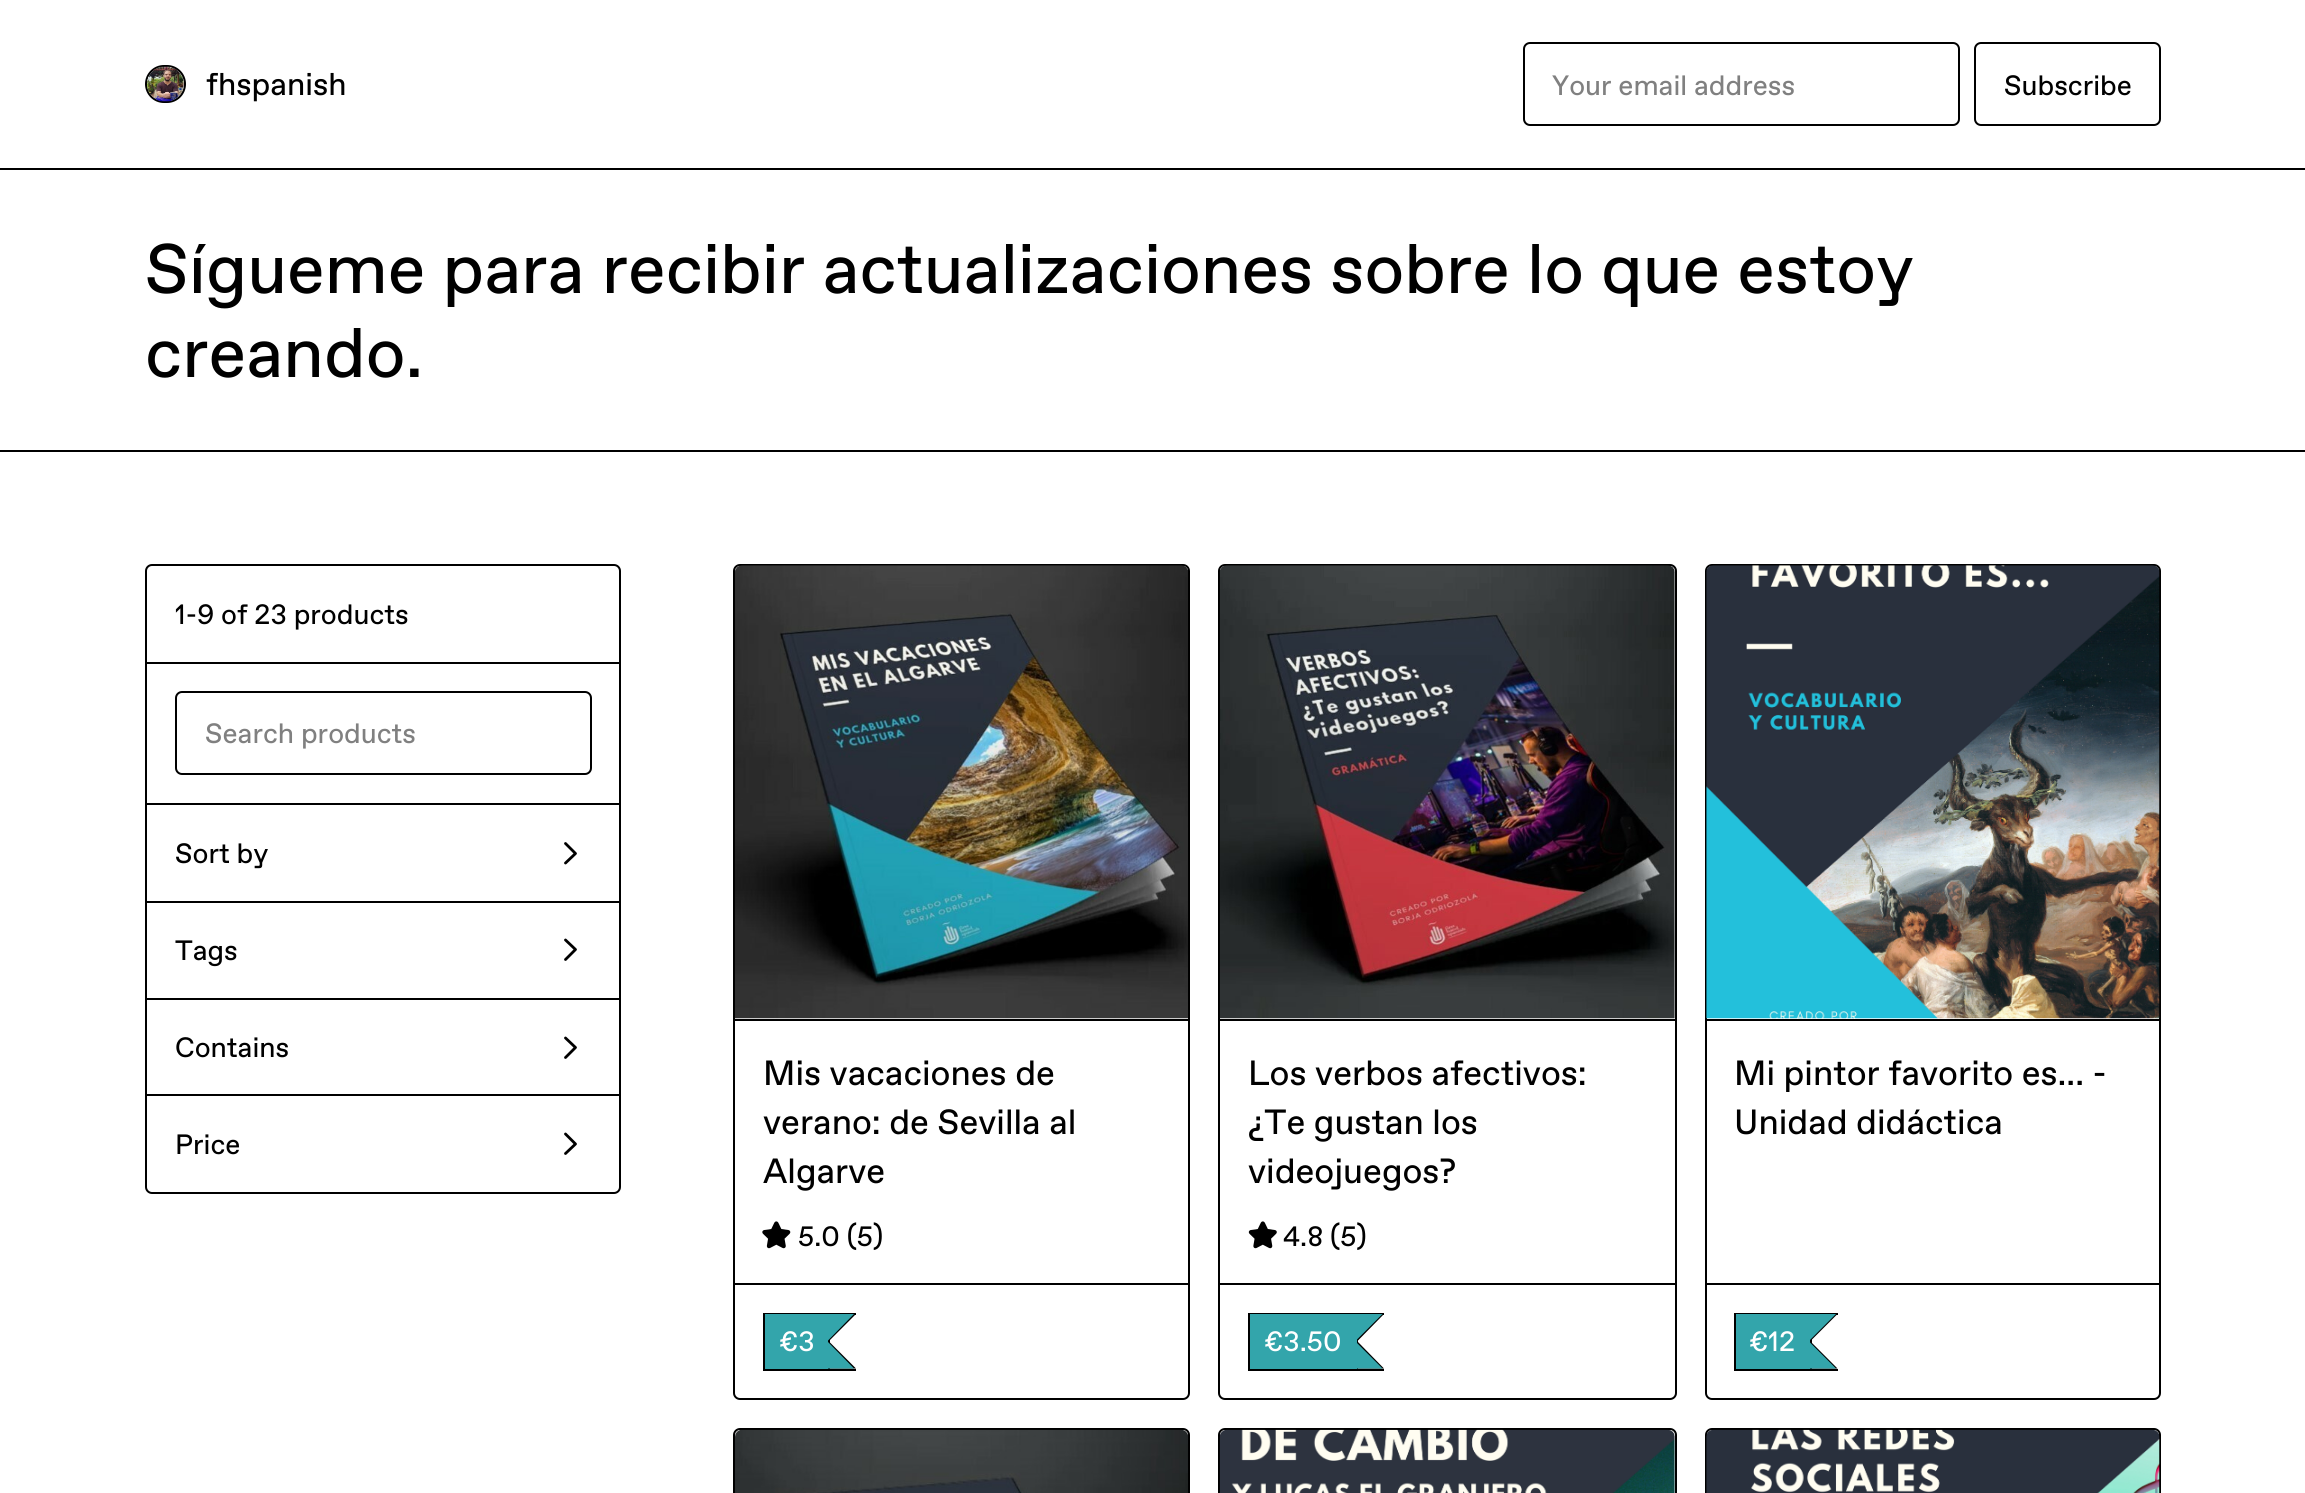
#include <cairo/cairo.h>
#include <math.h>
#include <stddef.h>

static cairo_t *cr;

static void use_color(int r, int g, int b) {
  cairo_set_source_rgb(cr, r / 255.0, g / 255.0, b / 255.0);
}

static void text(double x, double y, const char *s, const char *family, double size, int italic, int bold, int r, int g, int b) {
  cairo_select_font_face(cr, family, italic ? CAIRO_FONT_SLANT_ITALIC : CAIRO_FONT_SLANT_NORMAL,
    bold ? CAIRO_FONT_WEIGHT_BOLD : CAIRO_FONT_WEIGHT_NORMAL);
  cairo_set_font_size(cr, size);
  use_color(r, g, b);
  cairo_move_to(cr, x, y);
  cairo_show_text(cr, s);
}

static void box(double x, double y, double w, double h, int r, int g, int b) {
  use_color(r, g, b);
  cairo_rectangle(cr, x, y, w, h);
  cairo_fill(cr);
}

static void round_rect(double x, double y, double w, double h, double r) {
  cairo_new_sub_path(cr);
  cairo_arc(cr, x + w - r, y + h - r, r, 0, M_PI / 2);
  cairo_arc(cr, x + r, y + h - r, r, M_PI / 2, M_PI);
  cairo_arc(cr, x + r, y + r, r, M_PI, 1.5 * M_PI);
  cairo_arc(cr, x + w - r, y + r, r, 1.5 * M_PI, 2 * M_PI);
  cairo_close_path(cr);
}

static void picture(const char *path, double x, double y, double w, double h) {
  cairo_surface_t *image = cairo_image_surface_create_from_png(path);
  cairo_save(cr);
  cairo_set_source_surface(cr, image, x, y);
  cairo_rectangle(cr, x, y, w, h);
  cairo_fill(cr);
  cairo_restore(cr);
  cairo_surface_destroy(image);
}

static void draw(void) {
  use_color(255, 255, 255);
  cairo_paint(cr);
  box(0, 168, 2305, 2, 0, 0, 0);
  round_rect(146, 66, 39, 36, 18);
  cairo_stroke(cr);
  picture("img_01.png", 147, 66, 37, 36);
  round_rect(1524, 43, 435, 82, 6);
  cairo_stroke(cr);
  round_rect(1975, 43, 185, 82, 6);
  cairo_stroke(cr);
  box(0, 450, 2305, 2, 0, 0, 0);
  round_rect(146, 565, 474, 628, 6);
  cairo_stroke(cr);
  box(147, 662, 473, 2, 0, 0, 0);
  box(147, 803, 473, 2, 0, 0, 0);
  round_rect(176, 692, 415, 82, 6);
  cairo_stroke(cr);
  box(147, 901, 473, 2, 0, 0, 0);
  cairo_new_path(cr);
  cairo_move_to(cr, 565.5, 843.5);
  cairo_line_to(cr, 575.5, 853.5);
  cairo_line_to(cr, 565.5, 863);
  cairo_set_line_width(cr, 2.8);
  cairo_set_line_cap(cr, CAIRO_LINE_CAP_ROUND);
  cairo_set_line_join(cr, CAIRO_LINE_JOIN_ROUND);
  cairo_stroke(cr);
  box(147, 998, 473, 2, 0, 0, 0);
  cairo_new_path(cr);
  cairo_move_to(cr, 565.5, 940);
  cairo_line_to(cr, 575.5, 949.5);
  cairo_line_to(cr, 565.5, 959.5);
  cairo_stroke(cr);
  box(147, 1094, 473, 2, 0, 0, 0);
  cairo_new_path(cr);
  cairo_move_to(cr, 565.5, 1038);
  cairo_line_to(cr, 575.5, 1047.5);
  cairo_line_to(cr, 565.5, 1057.5);
  cairo_stroke(cr);
  cairo_new_path(cr);
  cairo_move_to(cr, 565.5, 1134);
  cairo_line_to(cr, 575.5, 1144);
  cairo_line_to(cr, 565.5, 1153.5);
  cairo_stroke(cr);
  round_rect(734, 565, 455, 834, 6);
  cairo_set_line_width(cr, 2);
  cairo_set_line_cap(cr, CAIRO_LINE_CAP_BUTT);
  cairo_set_line_join(cr, CAIRO_LINE_JOIN_MITER);
  cairo_stroke(cr);
  box(735, 1019, 453, 2, 0, 0, 0);
  picture("img_02.png", 735, 565, 453, 454);
  box(735, 1283, 453, 2, 0, 0, 0);
  picture("img_03.png", 762, 1221, 29, 28);
  box(763, 1313, 93, 2, 0, 0, 0);
  box(763, 1369, 93, 2, 0, 0, 0);
  box(763, 1313, 2, 57, 0, 0, 0);
  box(765, 1314, 63, 55, 51, 165, 171);
  use_color(0, 0, 0);
  cairo_new_path(cr);
  cairo_move_to(cr, 828, 1314);
  cairo_line_to(cr, 856, 1314);
  cairo_line_to(cr, 829.5, 1340.5);
  cairo_close_path(cr);
  cairo_move_to(cr, 856, 1368.5);
  cairo_line_to(cr, 828, 1368.5);
  cairo_line_to(cr, 829.5, 1342);
  cairo_close_path(cr);
  cairo_fill(cr);
  box(828, 1338, 2, 31, 0, 0, 0);
  use_color(51, 165, 171);
  cairo_new_path(cr);
  cairo_move_to(cr, 826, 1314);
  cairo_line_to(cr, 854, 1314);
  cairo_line_to(cr, 828, 1340.5);
  cairo_close_path(cr);
  cairo_move_to(cr, 854, 1368.5);
  cairo_line_to(cr, 826, 1368.5);
  cairo_line_to(cr, 828, 1342);
  cairo_close_path(cr);
  cairo_fill(cr);
  round_rect(1219, 565, 457, 834, 6);
  use_color(0, 0, 0);
  cairo_stroke(cr);
  box(1220, 1019, 455, 2, 0, 0, 0);
  picture("img_04.png", 1219, 565, 456, 454);
  box(1220, 1283, 455, 2, 0, 0, 0);
  picture("img_05.png", 1248, 1221, 29, 28);
  box(1248, 1313, 136, 2, 0, 0, 0);
  box(1248, 1369, 136, 2, 0, 0, 0);
  box(1248, 1313, 2, 57, 0, 0, 0);
  box(1250, 1314, 105, 55, 51, 165, 171);
  use_color(0, 0, 0);
  cairo_new_path(cr);
  cairo_move_to(cr, 1356, 1314);
  cairo_line_to(cr, 1384, 1314);
  cairo_line_to(cr, 1358, 1340.5);
  cairo_close_path(cr);
  cairo_move_to(cr, 1384, 1368.5);
  cairo_line_to(cr, 1356, 1368.5);
  cairo_line_to(cr, 1358, 1342);
  cairo_close_path(cr);
  cairo_fill(cr);
  box(1357, 1338, 1, 31, 0, 0, 0);
  use_color(51, 165, 171);
  cairo_new_path(cr);
  cairo_move_to(cr, 1354.5, 1314);
  cairo_line_to(cr, 1382.5, 1314);
  cairo_line_to(cr, 1356, 1340.5);
  cairo_close_path(cr);
  cairo_move_to(cr, 1382.5, 1368.5);
  cairo_line_to(cr, 1354.5, 1368.5);
  cairo_line_to(cr, 1356, 1342);
  cairo_close_path(cr);
  cairo_fill(cr);
  box(1355, 1323, 2, 46, 51, 165, 171);
  round_rect(1706, 565, 454, 834, 6);
  use_color(0, 0, 0);
  cairo_stroke(cr);
  box(1706, 1019, 454, 2, 0, 0, 0);
  picture("img_06.png", 1706, 565, 454, 454);
  box(1706, 1283, 454, 2, 0, 0, 0);
  box(1734, 1313, 104, 2, 0, 0, 0);
  box(1734, 1369, 104, 2, 0, 0, 0);
  box(1734, 1313, 2, 57, 0, 0, 0);
  cairo_new_path(cr);
  cairo_move_to(cr, 1809.5, 1314);
  cairo_line_to(cr, 1837.5, 1314);
  cairo_line_to(cr, 1811, 1340.5);
  cairo_close_path(cr);
  cairo_move_to(cr, 1837.5, 1368.5);
  cairo_line_to(cr, 1809.5, 1368.5);
  cairo_line_to(cr, 1811, 1342);
  cairo_close_path(cr);
  cairo_fill(cr);
  box(1810, 1338, 2, 31, 0, 0, 0);
  use_color(51, 165, 171);
  cairo_new_path(cr);
  cairo_move_to(cr, 1808, 1314);
  cairo_line_to(cr, 1836, 1314);
  cairo_line_to(cr, 1809.5, 1340.5);
  cairo_close_path(cr);
  cairo_move_to(cr, 1836, 1368.5);
  cairo_line_to(cr, 1808, 1368.5);
  cairo_line_to(cr, 1809.5, 1342);
  cairo_close_path(cr);
  cairo_fill(cr);
  box(1808, 1314, 2, 55, 51, 165, 171);
  box(1736, 1314, 72, 55, 51, 165, 171);
  round_rect(734, 1429, 455, 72, 6);
  use_color(0, 0, 0);
  cairo_stroke(cr);
  picture("img_07.png", 735, 1429, 453, 64);
  round_rect(1219, 1429, 457, 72, 6);
  cairo_stroke(cr);
  picture("img_08.png", 1219, 1429, 456, 64);
  round_rect(1706, 1429, 454, 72, 6);
  cairo_stroke(cr);
  picture("img_09.png", 1706, 1429, 454, 64);
  text(206, 95, "fhspanish", "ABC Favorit", 31.5, 0, 0, 0, 0, 0);
  text(1552, 95, "Your email address", "ABC Favorit", 28, 0, 0, 128, 128, 128);
  text(2004, 95, "Subscribe", "ABC Favorit", 28, 0, 0, 0, 0, 0);
  text(145, 293, "Sígueme para recibir actualizaciones sobre lo que estoy", "ABC Favorit", 70, 0, 0, 0, 0, 0);
  text(145, 377, "creando.", "ABC Favorit", 70, 0, 0, 0, 0, 0);
  text(175, 624, "1-9 of 23 products", "ABC Favorit", 28, 0, 0, 0, 0, 0);
  text(205, 743, "Search products", "ABC Favorit", 28, 0, 0, 128, 128, 128);
  text(175, 863, "Sort by", "ABC Favorit", 28, 0, 0, 0, 0, 0);
  text(175, 960, "Tags", "ABC Favorit", 28, 0, 0, 0, 0, 0);
  text(175, 1057, "Contains", "ABC Favorit", 28, 0, 0, 0, 0, 0);
  text(175, 1154, "Price", "ABC Favorit", 28, 0, 0, 0, 0, 0);
  text(763, 1085, "Mis vacaciones de", "ABC Favorit", 35, 0, 0, 0, 0, 0);
  text(763, 1134, "verano: de Sevilla al", "ABC Favorit", 35, 0, 0, 0, 0, 0);
  text(763, 1183, "Algarve", "ABC Favorit", 35, 0, 0, 0, 0, 0);
  text(798, 1246, "5.0 (5)", "ABC Favorit", 28, 0, 0, 0, 0, 0);
  text(779, 1351, "€3", "ABC Favorit", 28, 0, 0, 255, 255, 255);
  text(1248, 1085, "Los verbos afectivos:", "ABC Favorit", 35, 0, 0, 0, 0, 0);
  text(1248, 1134, "¿Te gustan los", "ABC Favorit", 35, 0, 0, 0, 0, 0);
  text(1248, 1183, "videojuegos?", "ABC Favorit", 35, 0, 0, 0, 0, 0);
  text(1283, 1246, "4.8 (5)", "ABC Favorit", 28, 0, 0, 0, 0, 0);
  text(1264, 1351, "€3.50", "ABC Favorit", 28, 0, 0, 255, 255, 255);
  text(1734, 1085, "Mi pintor favorito es... -", "ABC Favorit", 35, 0, 0, 0, 0, 0);
  text(1734, 1134, "Unidad didáctica", "ABC Favorit", 35, 0, 0, 0, 0, 0);
  text(1749, 1351, "€12", "ABC Favorit", 28, 0, 0, 255, 255, 255);
}

int main(void) {
  cairo_surface_t *surface = cairo_image_surface_create(CAIRO_FORMAT_RGB24, 2305, 1493);
  cr = cairo_create(surface);
  cairo_font_options_t *options = cairo_font_options_create();
  cairo_font_options_set_hint_metrics(options, CAIRO_HINT_METRICS_OFF);
  cairo_font_options_set_hint_style(options, CAIRO_HINT_STYLE_NONE);
  cairo_set_font_options(cr, options);
  cairo_set_miter_limit(cr, 4);
  draw();
  cairo_surface_write_to_png(surface, "out.png");
  cairo_font_options_destroy(options);
  cairo_destroy(cr);
  cairo_surface_destroy(surface);
  return 0;
}
